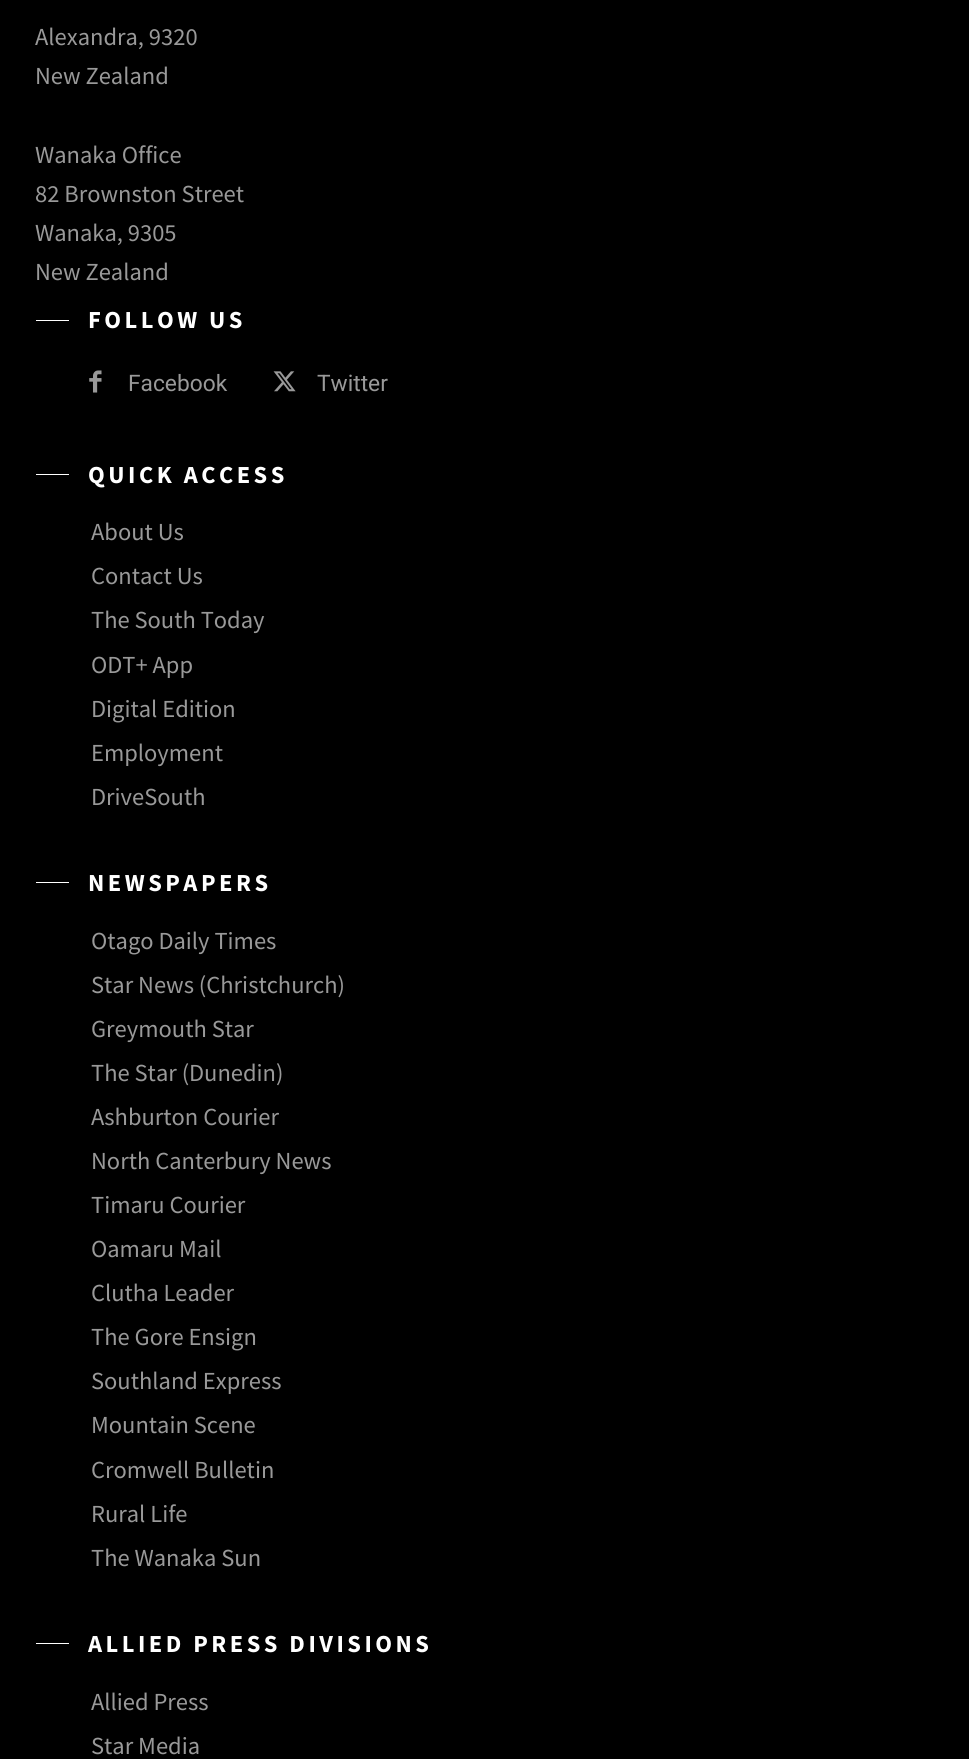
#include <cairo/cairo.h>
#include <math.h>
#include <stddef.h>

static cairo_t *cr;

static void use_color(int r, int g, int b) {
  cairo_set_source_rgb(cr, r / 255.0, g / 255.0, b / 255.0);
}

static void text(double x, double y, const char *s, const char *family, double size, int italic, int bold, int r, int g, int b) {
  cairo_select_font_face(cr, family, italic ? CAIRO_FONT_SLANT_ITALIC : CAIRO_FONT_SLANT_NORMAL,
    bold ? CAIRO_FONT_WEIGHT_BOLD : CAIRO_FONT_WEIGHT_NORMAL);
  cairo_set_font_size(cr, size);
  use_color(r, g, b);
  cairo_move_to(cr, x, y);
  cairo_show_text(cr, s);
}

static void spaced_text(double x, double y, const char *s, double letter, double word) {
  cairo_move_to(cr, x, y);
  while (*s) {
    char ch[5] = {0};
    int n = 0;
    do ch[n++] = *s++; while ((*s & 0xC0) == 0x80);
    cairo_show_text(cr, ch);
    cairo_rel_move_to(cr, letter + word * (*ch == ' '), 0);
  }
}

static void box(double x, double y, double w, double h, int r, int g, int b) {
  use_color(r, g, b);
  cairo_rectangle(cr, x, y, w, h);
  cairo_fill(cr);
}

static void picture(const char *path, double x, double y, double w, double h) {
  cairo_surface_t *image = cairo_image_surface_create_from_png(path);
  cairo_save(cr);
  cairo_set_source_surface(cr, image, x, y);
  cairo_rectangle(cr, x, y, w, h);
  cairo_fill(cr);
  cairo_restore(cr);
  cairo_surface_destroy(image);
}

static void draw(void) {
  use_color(0, 0, 0);
  cairo_paint(cr);
  box(36, 320, 33, 1, 255, 255, 255);
  picture("img_01.png", 89, 370, 13, 23);
  picture("img_02.png", 273, 371, 23, 21);
  box(36, 474, 33, 1, 255, 255, 255);
  box(36, 882, 33, 1, 255, 255, 255);
  box(36, 1643, 33, 1, 255, 255, 255);
  text(35, 45, "Alexandra, 9320", "Source Sans Pro", 24.5, 0, 0, 153, 153, 153);
  text(35, 84, "New Zealand", "Source Sans Pro", 24.5, 0, 0, 153, 153, 153);
  text(35, 163, "Wanaka Office", "Source Sans Pro", 24.5, 0, 0, 153, 153, 153);
  text(35, 202, "82 Brownston Street", "Source Sans Pro", 24.5, 0, 0, 153, 153, 153);
  text(35, 241, "Wanaka, 9305", "Source Sans Pro", 24.5, 0, 0, 153, 153, 153);
  text(35, 280, "New Zealand", "Source Sans Pro", 24.5, 0, 0, 153, 153, 153);
  cairo_select_font_face(cr, "Source Sans Pro", CAIRO_FONT_SLANT_NORMAL, CAIRO_FONT_WEIGHT_BOLD);
  use_color(255, 255, 255);
  spaced_text(88, 328, "FOLLOW US", 3.5, 0);
  text(128, 391, "Facebook", "Roboto", 22.75, 0, 0, 153, 153, 153);
  text(317, 391, "Twitter", "Roboto", 22.75, 0, 0, 153, 153, 153);
  cairo_select_font_face(cr, "Source Sans Pro", CAIRO_FONT_SLANT_NORMAL, CAIRO_FONT_WEIGHT_BOLD);
  cairo_set_font_size(cr, 24.5);
  use_color(255, 255, 255);
  spaced_text(88, 483, "QUICK ACCESS", 3.5, 0);
  text(91, 540, "About Us", "Source Sans Pro", 24.5, 0, 0, 153, 153, 153);
  text(91, 584, "Contact Us", "Source Sans Pro", 24.5, 0, 0, 153, 153, 153);
  text(91, 628, "The South Today", "Source Sans Pro", 24.5, 0, 0, 153, 153, 153);
  text(91, 673, "ODT+ App", "Source Sans Pro", 24.5, 0, 0, 153, 153, 153);
  text(91, 717, "Digital Edition", "Source Sans Pro", 24.5, 0, 0, 153, 153, 153);
  text(91, 761, "Employment", "Source Sans Pro", 24.5, 0, 0, 153, 153, 153);
  text(91, 805, "DriveSouth", "Source Sans Pro", 24.5, 0, 0, 153, 153, 153);
  cairo_select_font_face(cr, "Source Sans Pro", CAIRO_FONT_SLANT_NORMAL, CAIRO_FONT_WEIGHT_BOLD);
  use_color(255, 255, 255);
  spaced_text(88, 891, "NEWSPAPERS", 3.5, 0);
  text(91, 949, "Otago Daily Times", "Source Sans Pro", 24.5, 0, 0, 153, 153, 153);
  text(91, 993, "Star News (Christchurch)", "Source Sans Pro", 24.5, 0, 0, 153, 153, 153);
  text(91, 1037, "Greymouth Star", "Source Sans Pro", 24.5, 0, 0, 153, 153, 153);
  text(91, 1081, "The Star (Dunedin)", "Source Sans Pro", 24.5, 0, 0, 153, 153, 153);
  text(91, 1125, "Ashburton Courier", "Source Sans Pro", 24.5, 0, 0, 153, 153, 153);
  text(91, 1169, "North Canterbury News", "Source Sans Pro", 24.5, 0, 0, 153, 153, 153);
  text(91, 1213, "Timaru Courier", "Source Sans Pro", 24.5, 0, 0, 153, 153, 153);
  text(91, 1257, "Oamaru Mail", "Source Sans Pro", 24.5, 0, 0, 153, 153, 153);
  text(91, 1301, "Clutha Leader", "Source Sans Pro", 24.5, 0, 0, 153, 153, 153);
  text(91, 1345, "The Gore Ensign", "Source Sans Pro", 24.5, 0, 0, 153, 153, 153);
  text(91, 1389, "Southland Express", "Source Sans Pro", 24.5, 0, 0, 153, 153, 153);
  text(91, 1433, "Mountain Scene", "Source Sans Pro", 24.5, 0, 0, 153, 153, 153);
  text(91, 1478, "Cromwell Bulletin", "Source Sans Pro", 24.5, 0, 0, 153, 153, 153);
  text(91, 1522, "Rural Life", "Source Sans Pro", 24.5, 0, 0, 153, 153, 153);
  text(91, 1566, "The Wanaka Sun", "Source Sans Pro", 24.5, 0, 0, 153, 153, 153);
  cairo_select_font_face(cr, "Source Sans Pro", CAIRO_FONT_SLANT_NORMAL, CAIRO_FONT_WEIGHT_BOLD);
  use_color(255, 255, 255);
  spaced_text(88, 1652, "ALLIED PRESS DIVISIONS", 3.5, 0);
  text(91, 1710, "Allied Press", "Source Sans Pro", 24.5, 0, 0, 153, 153, 153);
  text(91, 1754, "Star Media", "Source Sans Pro", 24.5, 0, 0, 153, 153, 153);
}

int main(void) {
  cairo_surface_t *surface = cairo_image_surface_create(CAIRO_FORMAT_RGB24, 969, 1759);
  cr = cairo_create(surface);
  cairo_font_options_t *options = cairo_font_options_create();
  cairo_font_options_set_hint_metrics(options, CAIRO_HINT_METRICS_OFF);
  cairo_font_options_set_hint_style(options, CAIRO_HINT_STYLE_NONE);
  cairo_set_font_options(cr, options);
  cairo_set_miter_limit(cr, 4);
  draw();
  cairo_surface_write_to_png(surface, "out.png");
  cairo_font_options_destroy(options);
  cairo_destroy(cr);
  cairo_surface_destroy(surface);
  return 0;
}
